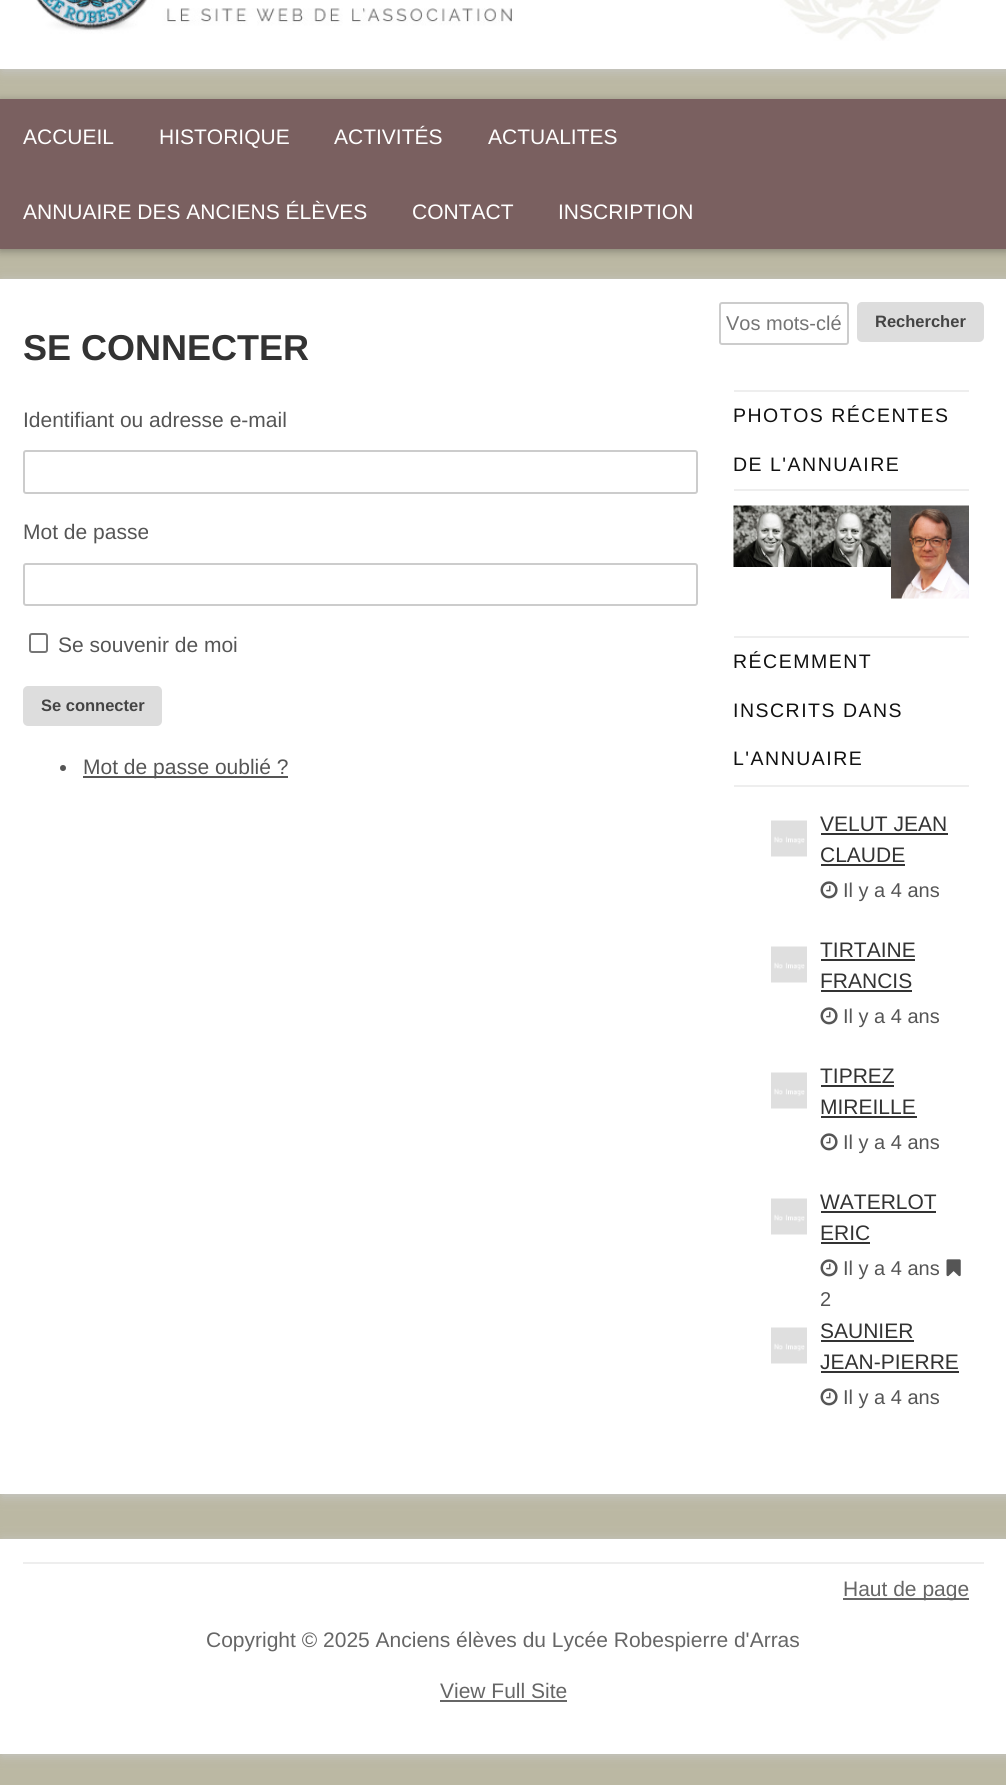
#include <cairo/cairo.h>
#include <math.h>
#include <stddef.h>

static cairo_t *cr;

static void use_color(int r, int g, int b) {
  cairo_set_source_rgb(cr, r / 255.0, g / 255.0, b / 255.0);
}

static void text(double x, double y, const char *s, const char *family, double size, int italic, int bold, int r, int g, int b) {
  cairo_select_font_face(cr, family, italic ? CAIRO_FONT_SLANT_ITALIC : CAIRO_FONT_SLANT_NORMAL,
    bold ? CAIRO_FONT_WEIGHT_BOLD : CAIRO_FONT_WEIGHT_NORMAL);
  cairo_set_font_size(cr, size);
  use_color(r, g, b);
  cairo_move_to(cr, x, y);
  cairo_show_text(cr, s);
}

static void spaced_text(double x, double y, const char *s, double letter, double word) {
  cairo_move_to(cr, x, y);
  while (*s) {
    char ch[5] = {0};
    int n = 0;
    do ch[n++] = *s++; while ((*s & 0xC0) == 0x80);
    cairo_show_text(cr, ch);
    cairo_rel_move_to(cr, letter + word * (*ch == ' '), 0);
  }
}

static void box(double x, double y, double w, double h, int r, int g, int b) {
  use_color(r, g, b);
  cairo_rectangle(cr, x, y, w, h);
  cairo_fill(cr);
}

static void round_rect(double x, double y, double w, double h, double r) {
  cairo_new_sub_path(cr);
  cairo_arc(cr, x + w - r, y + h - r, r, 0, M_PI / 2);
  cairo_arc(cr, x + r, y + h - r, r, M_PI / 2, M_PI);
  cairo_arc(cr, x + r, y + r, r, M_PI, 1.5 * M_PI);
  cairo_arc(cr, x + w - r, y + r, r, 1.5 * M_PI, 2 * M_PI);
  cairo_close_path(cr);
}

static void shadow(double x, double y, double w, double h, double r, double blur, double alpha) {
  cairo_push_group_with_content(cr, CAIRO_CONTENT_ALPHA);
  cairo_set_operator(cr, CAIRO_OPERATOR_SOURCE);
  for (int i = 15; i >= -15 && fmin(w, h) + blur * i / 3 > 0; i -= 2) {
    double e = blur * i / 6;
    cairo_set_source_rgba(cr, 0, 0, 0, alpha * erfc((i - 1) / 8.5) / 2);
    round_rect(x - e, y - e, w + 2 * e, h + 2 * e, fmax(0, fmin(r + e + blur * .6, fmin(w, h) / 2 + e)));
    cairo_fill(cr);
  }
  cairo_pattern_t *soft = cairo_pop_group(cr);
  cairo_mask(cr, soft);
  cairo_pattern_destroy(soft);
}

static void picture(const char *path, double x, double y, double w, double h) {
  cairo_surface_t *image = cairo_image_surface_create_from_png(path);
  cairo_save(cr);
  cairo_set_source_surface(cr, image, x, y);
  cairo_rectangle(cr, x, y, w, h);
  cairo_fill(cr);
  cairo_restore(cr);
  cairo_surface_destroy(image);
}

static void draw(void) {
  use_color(187, 184, 163);
  cairo_paint(cr);
  use_color(199, 199, 199);
  shadow(2, -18, 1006, 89, 0, 6, 1);
  box(0, 0, 1006, 69, 255, 255, 255);
  picture("img_01.png", 36, 0, 905, 41);
  use_color(0, 0, 0);
  shadow(0, 101, 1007, 150, 0, 4.5, 0.3);
  box(0, 99, 1006, 150, 122, 96, 96);
  use_color(199, 199, 199);
  shadow(2, 281, 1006, 1215, 0, 6, 1);
  box(0, 279, 1006, 1215, 255, 255, 255);
  round_rect(24, 451, 673, 42, 2);
  use_color(204, 204, 204);
  cairo_stroke(cr);
  round_rect(24, 564, 673, 41, 2);
  cairo_stroke(cr);
  round_rect(30, 634, 17, 18, 2);
  use_color(118, 118, 118);
  cairo_stroke(cr);
  use_color(221, 221, 221);
  round_rect(23, 686, 139, 40, 5);
  cairo_fill(cr);
  use_color(85, 85, 85);
  cairo_arc(cr, 63, 768, 3, 0, 2 * M_PI);
  cairo_fill(cr);
  box(83, 776, 205, 2, 85, 85, 85);
  round_rect(720, 303, 128, 41, 2);
  use_color(204, 204, 204);
  cairo_stroke(cr);
  use_color(221, 221, 221);
  round_rect(857, 302, 127, 40, 5);
  cairo_fill(cr);
  box(734, 390, 235, 2, 238, 238, 238);
  box(734, 489, 235, 2, 238, 238, 238);
  picture("img_02.png", 733, 505, 79, 62);
  picture("img_03.png", 811, 505, 80, 62);
  picture("img_04.png", 891, 505, 78, 94);
  box(734, 636, 235, 2, 238, 238, 238);
  box(734, 785, 235, 2, 238, 238, 238);
  picture("img_05.png", 771, 820, 36, 37);
  box(821, 833, 127, 2, 51, 51, 51);
  box(821, 864, 84, 2, 51, 51, 51);
  picture("img_06.png", 820, 881, 18, 18);
  picture("img_05.png", 771, 946, 36, 37);
  box(821, 959, 94, 2, 51, 51, 51);
  box(821, 990, 91, 2, 51, 51, 51);
  picture("img_06.png", 820, 1007, 18, 18);
  picture("img_05.png", 771, 1072, 36, 37);
  box(821, 1085, 73, 2, 51, 51, 51);
  box(821, 1116, 96, 2, 51, 51, 51);
  picture("img_06.png", 820, 1133, 18, 18);
  picture("img_07.png", 771, 1198, 36, 37);
  box(821, 1211, 115, 2, 51, 51, 51);
  box(821, 1242, 49, 2, 51, 51, 51);
  picture("img_06.png", 820, 1259, 18, 18);
  picture("img_08.png", 946, 1259, 15, 18);
  picture("img_05.png", 771, 1327, 36, 37);
  box(821, 1340, 93, 2, 51, 51, 51);
  box(821, 1371, 138, 2, 51, 51, 51);
  picture("img_06.png", 820, 1388, 18, 18);
  use_color(199, 199, 199);
  shadow(2, 1541, 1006, 214, 0, 6, 1);
  box(0, 1539, 1006, 215, 255, 255, 255);
  box(23, 1562, 961, 2, 238, 238, 238);
  box(843, 1598, 126, 2, 102, 102, 102);
  box(440, 1700, 127, 2, 102, 102, 102);
  text(23, 144, "ACCUEIL", "Liberation Sans", 21, 0, 0, 255, 255, 255);
  text(159, 144, "HISTORIQUE", "Liberation Sans", 21, 0, 0, 255, 255, 255);
  text(334, 144, "ACTIVITÉS", "Liberation Sans", 21, 0, 0, 255, 255, 255);
  text(488, 144, "ACTUALITES", "Liberation Sans", 21, 0, 0, 255, 255, 255);
  text(23, 219, "ANNUAIRE DES ANCIENS ÉLÈVES", "Liberation Sans", 21, 0, 0, 255, 255, 255);
  text(412, 219, "CONTACT", "Liberation Sans", 21, 0, 0, 255, 255, 255);
  text(558, 219, "INSCRIPTION", "Liberation Sans", 21, 0, 0, 255, 255, 255);
  text(23, 360, "SE CONNECTER", "Liberation Sans", 36, 0, 1, 51, 51, 51);
  text(23, 427, "Identifiant ou adresse e-mail", "Liberation Sans", 21, 0, 0, 85, 85, 85);
  text(23, 539, "Mot de passe", "Liberation Sans", 21, 0, 0, 85, 85, 85);
  text(58, 652, "Se souvenir de moi", "Liberation Sans", 21, 0, 0, 85, 85, 85);
  text(41, 711, "Se connecter", "Liberation Sans", 16.5, 0, 1, 68, 68, 68);
  text(83, 774, "Mot de passe oublié ?", "Liberation Sans", 21, 0, 0, 85, 85, 85);
  text(726, 330, "Vos mots-clé", "Liberation Sans", 20, 0, 0, 117, 117, 117);
  text(875, 327, "Rechercher", "Liberation Sans", 16.5, 0, 1, 68, 68, 68);
  cairo_select_font_face(cr, "Liberation Sans", CAIRO_FONT_SLANT_NORMAL, CAIRO_FONT_WEIGHT_NORMAL);
  cairo_set_font_size(cr, 19.5);
  use_color(17, 17, 17);
  spaced_text(733, 422, "PHOTOS RÉCENTES", 1.5, 0);
  spaced_text(733, 471, "DE L'ANNUAIRE", 1.5, 0);
  spaced_text(733, 668, "RÉCEMMENT", 1.5, 0);
  spaced_text(733, 717, "INSCRITS DANS", 1.5, 0);
  spaced_text(733, 765, "L'ANNUAIRE", 1.5, 0);
  text(820, 831, "VELUT JEAN", "Liberation Sans", 21, 0, 0, 51, 51, 51);
  text(820, 862, "CLAUDE", "Liberation Sans", 21, 0, 0, 51, 51, 51);
  text(843, 897, "Il y a 4 ans", "Liberation Sans", 20, 0, 0, 85, 85, 85);
  text(820, 957, "TIRTAINE", "Liberation Sans", 21, 0, 0, 51, 51, 51);
  text(820, 988, "FRANCIS", "Liberation Sans", 21, 0, 0, 51, 51, 51);
  text(843, 1023, "Il y a 4 ans", "Liberation Sans", 20, 0, 0, 85, 85, 85);
  text(820, 1083, "TIPREZ", "Liberation Sans", 21, 0, 0, 51, 51, 51);
  text(820, 1114, "MIREILLE", "Liberation Sans", 21, 0, 0, 51, 51, 51);
  text(843, 1149, "Il y a 4 ans", "Liberation Sans", 20, 0, 0, 85, 85, 85);
  text(820, 1209, "WATERLOT", "Liberation Sans", 21, 0, 0, 51, 51, 51);
  text(820, 1240, "ERIC", "Liberation Sans", 21, 0, 0, 51, 51, 51);
  text(843, 1275, "Il y a 4 ans", "Liberation Sans", 20, 0, 0, 85, 85, 85);
  text(820, 1306, "2", "Liberation Sans", 20, 0, 0, 85, 85, 85);
  text(820, 1338, "SAUNIER", "Liberation Sans", 21, 0, 0, 51, 51, 51);
  text(820, 1369, "JEAN-PIERRE", "Liberation Sans", 21, 0, 0, 51, 51, 51);
  text(843, 1404, "Il y a 4 ans", "Liberation Sans", 20, 0, 0, 85, 85, 85);
  text(843, 1596, "Haut de page", "Liberation Sans", 21, 0, 0, 102, 102, 102);
  text(206, 1647, "Copyright © 2025 Anciens élèves du Lycée Robespierre d'Arras", "Liberation Sans", 21, 0, 0, 102, 102, 102);
  text(440, 1698, "View Full Site", "Liberation Sans", 21, 0, 0, 102, 102, 102);
}

int main(void) {
  cairo_surface_t *surface = cairo_image_surface_create(CAIRO_FORMAT_RGB24, 1006, 1785);
  cr = cairo_create(surface);
  cairo_font_options_t *options = cairo_font_options_create();
  cairo_font_options_set_hint_metrics(options, CAIRO_HINT_METRICS_OFF);
  cairo_font_options_set_hint_style(options, CAIRO_HINT_STYLE_NONE);
  cairo_set_font_options(cr, options);
  cairo_set_miter_limit(cr, 4);
  draw();
  cairo_surface_write_to_png(surface, "out.png");
  cairo_font_options_destroy(options);
  cairo_destroy(cr);
  cairo_surface_destroy(surface);
  return 0;
}
